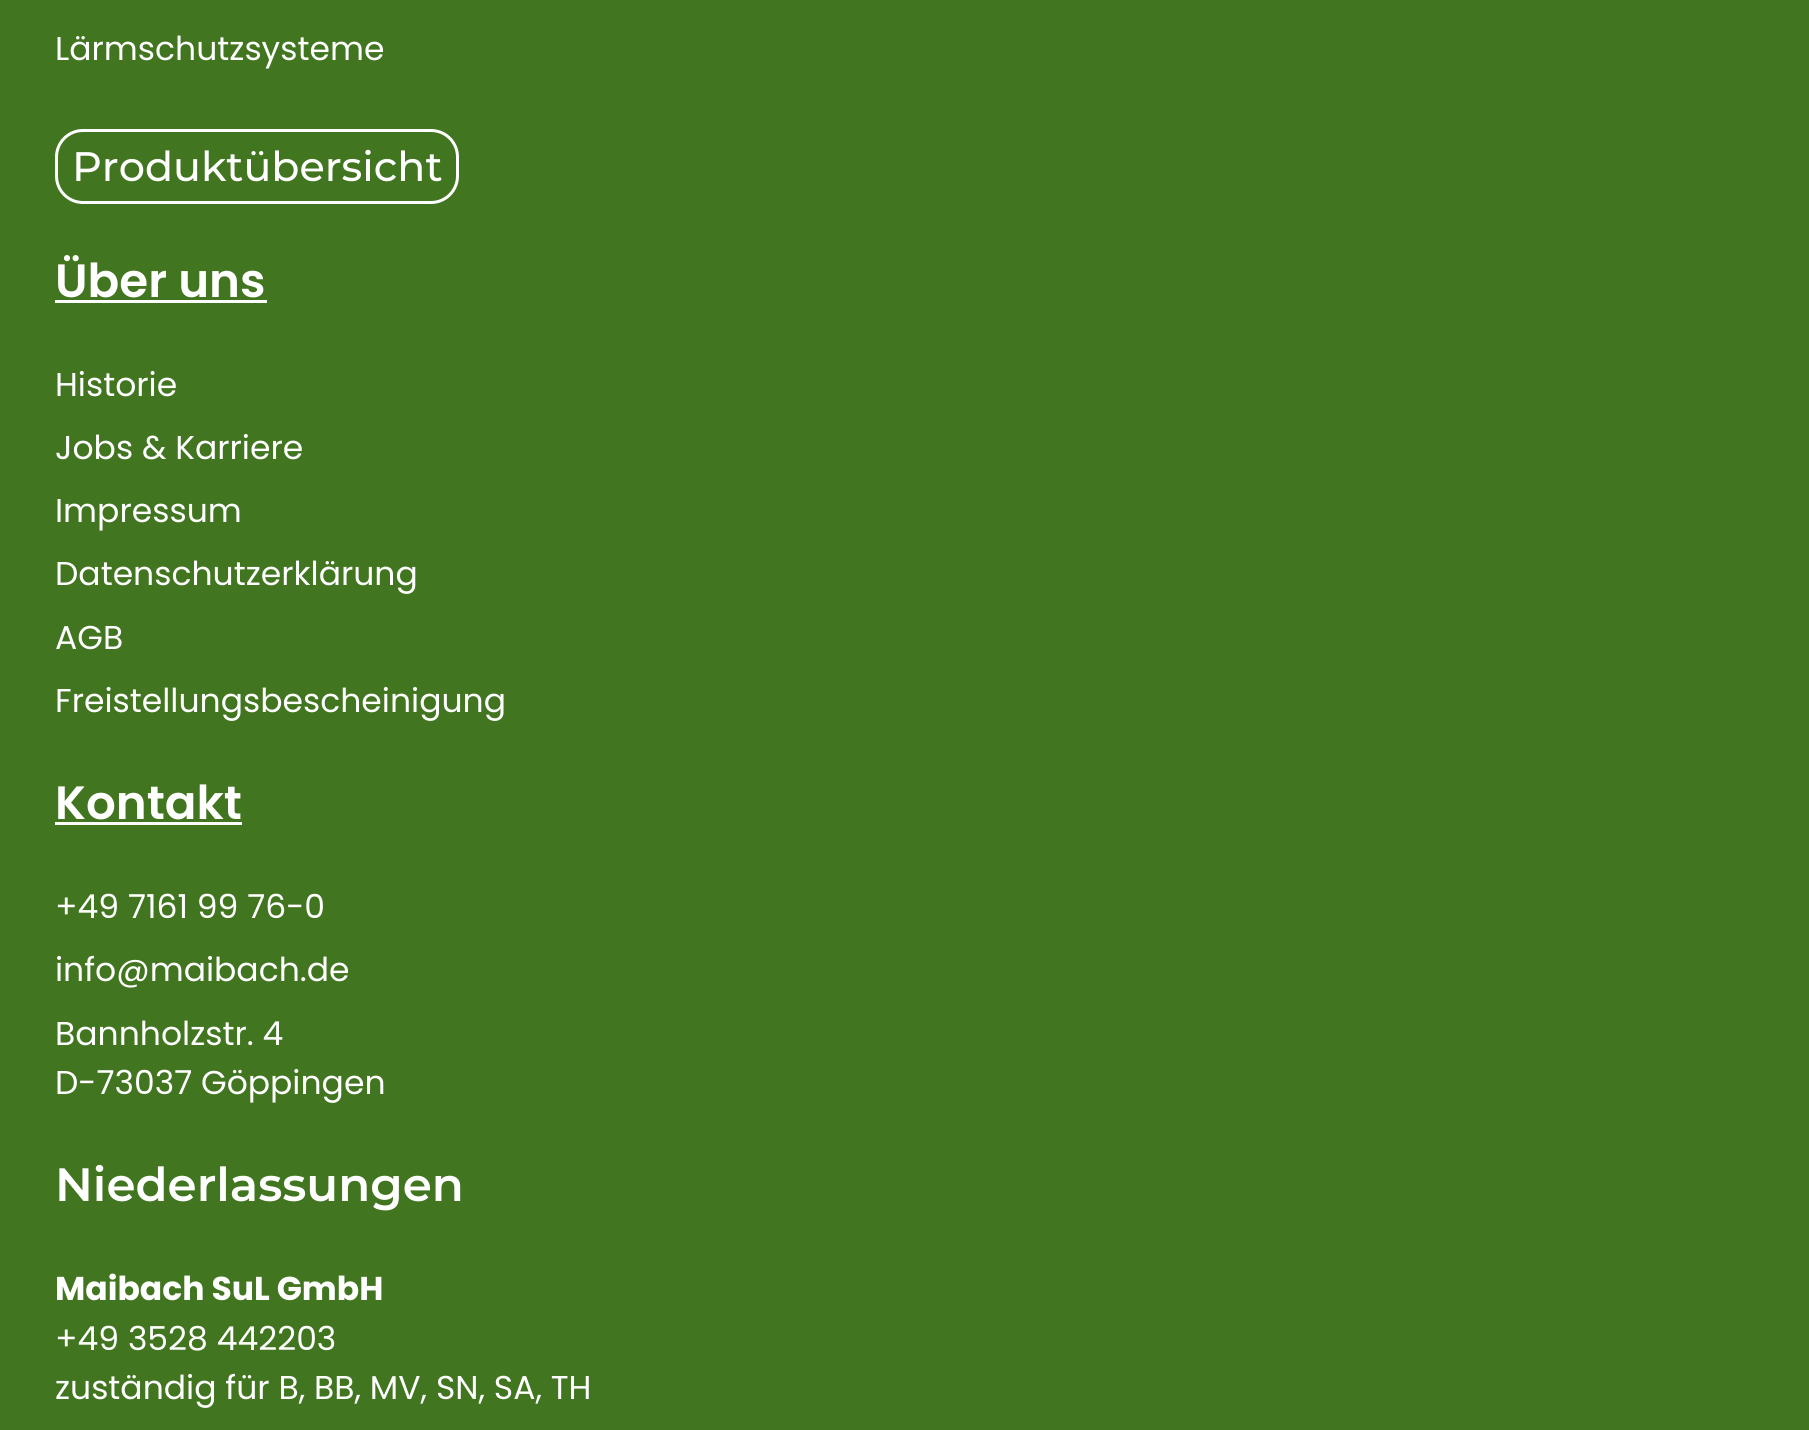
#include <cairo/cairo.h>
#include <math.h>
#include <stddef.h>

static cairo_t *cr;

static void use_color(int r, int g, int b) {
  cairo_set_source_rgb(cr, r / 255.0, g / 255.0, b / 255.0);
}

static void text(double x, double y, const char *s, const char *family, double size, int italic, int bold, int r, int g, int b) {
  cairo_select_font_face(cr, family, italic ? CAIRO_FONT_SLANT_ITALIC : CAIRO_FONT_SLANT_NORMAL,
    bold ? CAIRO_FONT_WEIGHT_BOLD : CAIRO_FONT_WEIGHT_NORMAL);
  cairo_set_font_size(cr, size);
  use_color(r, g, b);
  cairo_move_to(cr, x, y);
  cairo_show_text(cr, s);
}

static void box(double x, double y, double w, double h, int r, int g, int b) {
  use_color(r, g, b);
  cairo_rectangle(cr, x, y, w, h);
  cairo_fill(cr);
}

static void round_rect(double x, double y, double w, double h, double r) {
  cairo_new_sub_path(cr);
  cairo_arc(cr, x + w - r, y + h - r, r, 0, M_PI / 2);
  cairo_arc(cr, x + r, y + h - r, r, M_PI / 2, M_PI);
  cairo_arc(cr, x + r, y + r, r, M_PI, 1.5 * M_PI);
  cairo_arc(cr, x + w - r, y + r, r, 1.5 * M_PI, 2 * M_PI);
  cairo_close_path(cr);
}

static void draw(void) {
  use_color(65, 117, 32);
  cairo_paint(cr);
  round_rect(56.5, 130.5, 401, 72, 26.5);
  use_color(255, 255, 255);
  cairo_set_line_width(cr, 3);
  cairo_stroke(cr);
  box(55, 300, 212, 3, 255, 255, 255);
  box(55, 822, 187, 3, 255, 255, 255);
  text(55, 60, "Lärmschutzsysteme", "Poppins", 33, 0, 0, 255, 255, 255);
  text(72, 181, "Produktübersicht", "Montserrat Medium", 41.25, 0, 0, 255, 255, 255);
  text(55, 297, "Über uns", "Poppins SemiBold", 46.75, 0, 0, 255, 255, 255);
  text(55, 396, "Historie", "Poppins", 33, 0, 0, 255, 255, 255);
  text(55, 459, "Jobs & Karriere", "Poppins", 33, 0, 0, 255, 255, 255);
  text(55, 522, "Impressum", "Poppins", 33, 0, 0, 255, 255, 255);
  text(55, 585, "Datenschutzerklärung", "Poppins", 33, 0, 0, 255, 255, 255);
  text(55, 649, "AGB", "Poppins", 33, 0, 0, 255, 255, 255);
  text(55, 712, "Freistellungsbescheinigung", "Poppins", 33, 0, 0, 255, 255, 255);
  text(55, 819, "Kontakt", "Poppins SemiBold", 46.75, 0, 0, 255, 255, 255);
  text(55, 918, "+49 7161 99 76-0", "Poppins", 33, 0, 0, 255, 255, 255);
  text(55, 981, "info@maibach.de", "Poppins", 33, 0, 0, 255, 255, 255);
  text(55, 1045, "Bannholzstr. 4", "Poppins", 33, 0, 0, 255, 255, 255);
  text(55, 1094, "D-73037 Göppingen", "Poppins", 33, 0, 0, 255, 255, 255);
  text(55, 1201, "Niederlassungen", "Montserrat SemiBold", 46.75, 0, 0, 255, 255, 255);
  text(55, 1300, "Maibach SuL GmbH", "Poppins", 33, 0, 1, 255, 255, 255);
  text(55, 1350, "+49 3528 442203", "Poppins", 33, 0, 0, 255, 255, 255);
  text(55, 1399, "zuständig für B, BB, MV, SN, SA, TH", "Poppins", 33, 0, 0, 255, 255, 255);
}

int main(void) {
  cairo_surface_t *surface = cairo_image_surface_create(CAIRO_FORMAT_RGB24, 1809, 1430);
  cr = cairo_create(surface);
  cairo_font_options_t *options = cairo_font_options_create();
  cairo_font_options_set_hint_metrics(options, CAIRO_HINT_METRICS_OFF);
  cairo_font_options_set_hint_style(options, CAIRO_HINT_STYLE_NONE);
  cairo_set_font_options(cr, options);
  cairo_set_miter_limit(cr, 4);
  draw();
  cairo_surface_write_to_png(surface, "out.png");
  cairo_font_options_destroy(options);
  cairo_destroy(cr);
  cairo_surface_destroy(surface);
  return 0;
}
